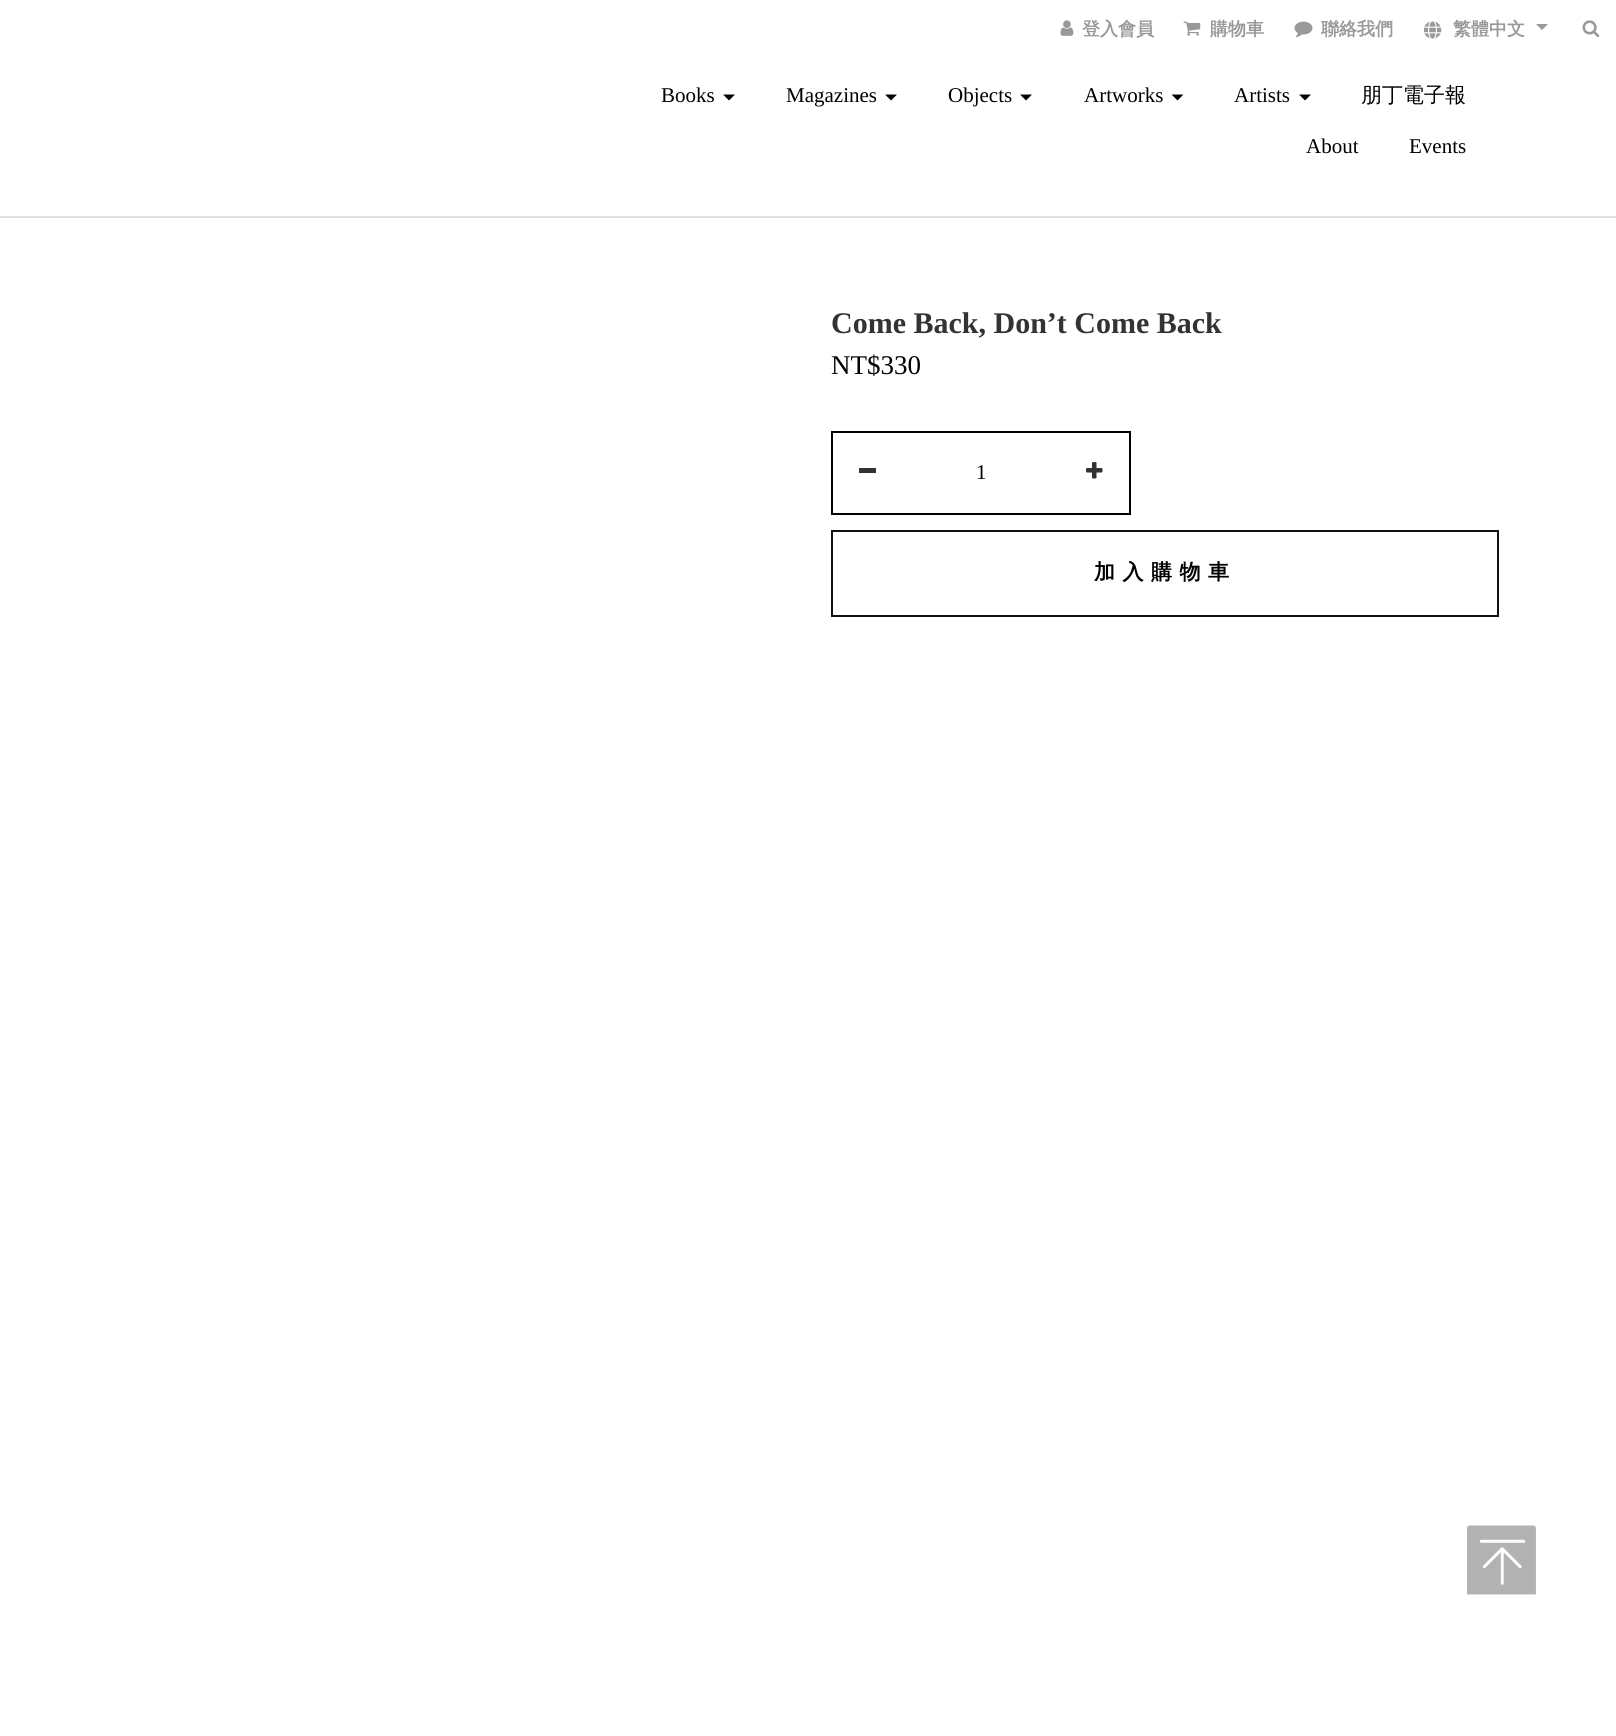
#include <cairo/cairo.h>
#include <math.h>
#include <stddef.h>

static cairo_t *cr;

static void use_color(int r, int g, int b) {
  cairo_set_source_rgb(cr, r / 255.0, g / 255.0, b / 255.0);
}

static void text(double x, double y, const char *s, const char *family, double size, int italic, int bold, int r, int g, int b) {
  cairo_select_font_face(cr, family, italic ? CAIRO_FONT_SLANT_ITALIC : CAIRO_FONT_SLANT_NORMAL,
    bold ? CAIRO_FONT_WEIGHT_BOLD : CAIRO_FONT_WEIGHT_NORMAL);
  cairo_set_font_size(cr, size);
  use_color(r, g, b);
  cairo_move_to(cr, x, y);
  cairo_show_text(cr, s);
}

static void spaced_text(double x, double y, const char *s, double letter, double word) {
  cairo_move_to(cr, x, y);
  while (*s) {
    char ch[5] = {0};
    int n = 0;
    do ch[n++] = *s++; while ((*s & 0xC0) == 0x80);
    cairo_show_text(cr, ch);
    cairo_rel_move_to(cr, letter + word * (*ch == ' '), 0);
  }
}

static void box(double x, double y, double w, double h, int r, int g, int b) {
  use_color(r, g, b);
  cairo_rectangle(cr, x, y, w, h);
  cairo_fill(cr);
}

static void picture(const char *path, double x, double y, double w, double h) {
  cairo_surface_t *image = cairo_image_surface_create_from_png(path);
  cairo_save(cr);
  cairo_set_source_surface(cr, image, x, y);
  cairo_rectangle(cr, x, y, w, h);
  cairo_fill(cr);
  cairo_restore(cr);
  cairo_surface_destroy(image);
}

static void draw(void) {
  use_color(255, 255, 255);
  cairo_paint(cr);
  picture("img_01.png", 1060, 20, 14, 16);
  picture("img_02.png", 1183, 21, 18, 15);
  picture("img_03.png", 1294, 21, 19, 16);
  picture("img_04.png", 1424, 21, 18, 18);
  use_color(153, 153, 153);
  cairo_new_path(cr);
  cairo_move_to(cr, 1536, 24);
  cairo_line_to(cr, 1548, 24);
  cairo_line_to(cr, 1542, 30);
  cairo_close_path(cr);
  cairo_fill(cr);
  picture("img_05.png", 1582, 20, 18, 17);
  box(0, 216, 1616, 2, 224, 224, 224);
  use_color(0, 0, 0);
  cairo_new_path(cr);
  cairo_move_to(cr, 723, 94.5);
  cairo_line_to(cr, 735, 94.5);
  cairo_line_to(cr, 729, 100.5);
  cairo_close_path(cr);
  cairo_fill(cr);
  cairo_new_path(cr);
  cairo_move_to(cr, 885, 94.5);
  cairo_line_to(cr, 897, 94.5);
  cairo_line_to(cr, 891, 100.5);
  cairo_close_path(cr);
  cairo_fill(cr);
  cairo_new_path(cr);
  cairo_move_to(cr, 1020, 94.5);
  cairo_line_to(cr, 1032, 94.5);
  cairo_line_to(cr, 1026, 100.5);
  cairo_close_path(cr);
  cairo_fill(cr);
  cairo_new_path(cr);
  cairo_move_to(cr, 1171.5, 94.5);
  cairo_line_to(cr, 1183.5, 94.5);
  cairo_line_to(cr, 1177.5, 100.5);
  cairo_close_path(cr);
  cairo_fill(cr);
  cairo_new_path(cr);
  cairo_move_to(cr, 1299, 94.5);
  cairo_line_to(cr, 1311, 94.5);
  cairo_line_to(cr, 1305, 100.5);
  cairo_close_path(cr);
  cairo_fill(cr);
  cairo_rectangle(cr, 832, 432, 298, 82);
  cairo_stroke(cr);
  box(859, 468, 17, 5, 51, 51, 51);
  picture("img_06.png", 1086, 462, 17, 17);
  cairo_rectangle(cr, 832, 531, 666, 85);
  use_color(17, 17, 17);
  cairo_stroke(cr);
  picture("img_07.png", 1467, 1525, 69, 70);
  text(1082, 35, "登入會員", "WenQuanYi Zen Hei", 18, 0, 1, 153, 153, 153);
  text(1210, 35, "購物車", "WenQuanYi Zen Hei", 18, 0, 1, 153, 153, 153);
  text(1321, 35, "聯絡我們", "WenQuanYi Zen Hei", 18, 0, 1, 153, 153, 153);
  text(1453, 35, "繁體中文", "WenQuanYi Zen Hei", 18, 0, 1, 153, 153, 153);
  text(661, 102, "Books", "Liberation Serif", 21, 0, 0, 0, 0, 0);
  text(786, 102, "Magazines", "Liberation Serif", 21, 0, 0, 0, 0, 0);
  text(948, 102, "Objects", "Liberation Serif", 21, 0, 0, 0, 0, 0);
  text(1084, 102, "Artworks", "Liberation Serif", 21, 0, 0, 0, 0, 0);
  text(1234, 102, "Artists", "Liberation Serif", 21, 0, 0, 0, 0, 0);
  text(1361, 102, "朋丁電子報", "WenQuanYi Zen Hei Medium", 21, 0, 0, 0, 0, 0);
  text(1306, 153, "About", "Liberation Serif", 21, 0, 0, 0, 0, 0);
  text(1409, 153, "Events", "Liberation Serif", 21, 0, 0, 0, 0, 0);
  text(831, 333, "Come Back, Don’t Come Back", "Liberation Serif", 30, 0, 1, 51, 51, 51);
  text(831, 374, "NT$330", "Liberation Serif", 27, 0, 0, 0, 0, 0);
  text(976, 479, "1", "Liberation Serif", 21, 0, 0, 0, 0, 0);
  cairo_select_font_face(cr, "WenQuanYi Zen Hei", CAIRO_FONT_SLANT_NORMAL, CAIRO_FONT_WEIGHT_BOLD);
  spaced_text(1094, 579, "加入購物車", 7.5, 0);
}

int main(void) {
  cairo_surface_t *surface = cairo_image_surface_create(CAIRO_FORMAT_RGB24, 1616, 1736);
  cr = cairo_create(surface);
  cairo_font_options_t *options = cairo_font_options_create();
  cairo_font_options_set_hint_metrics(options, CAIRO_HINT_METRICS_OFF);
  cairo_font_options_set_hint_style(options, CAIRO_HINT_STYLE_NONE);
  cairo_set_font_options(cr, options);
  cairo_set_miter_limit(cr, 4);
  draw();
  cairo_surface_write_to_png(surface, "out.png");
  cairo_font_options_destroy(options);
  cairo_destroy(cr);
  cairo_surface_destroy(surface);
  return 0;
}
